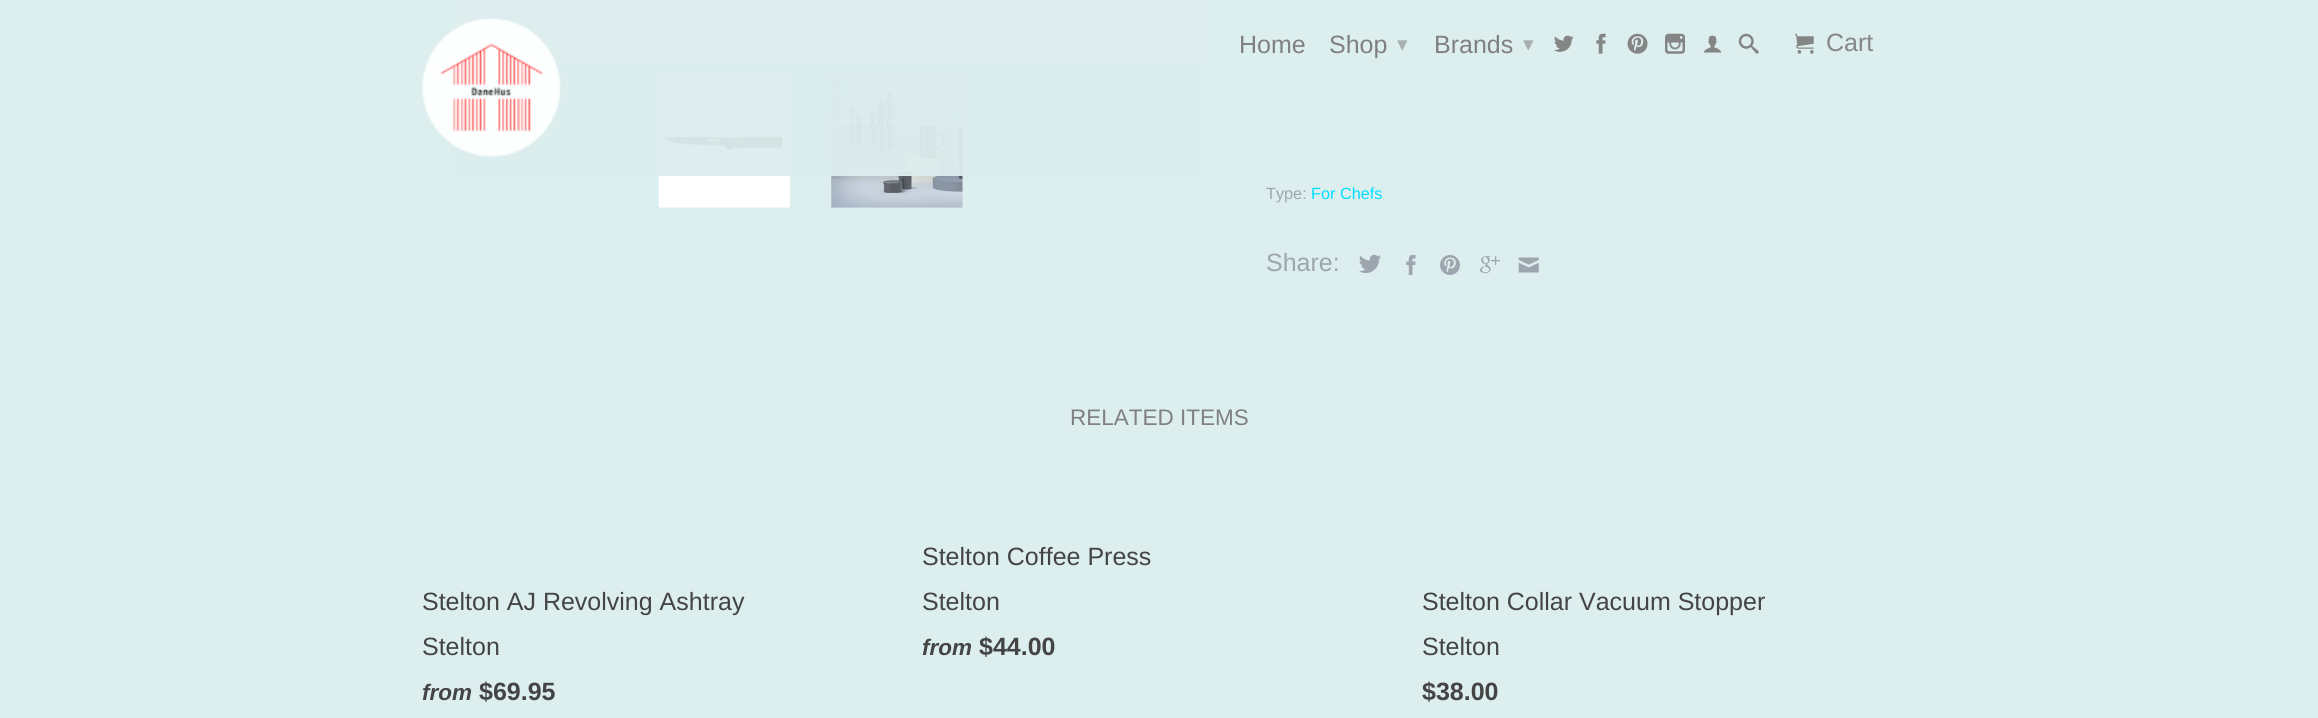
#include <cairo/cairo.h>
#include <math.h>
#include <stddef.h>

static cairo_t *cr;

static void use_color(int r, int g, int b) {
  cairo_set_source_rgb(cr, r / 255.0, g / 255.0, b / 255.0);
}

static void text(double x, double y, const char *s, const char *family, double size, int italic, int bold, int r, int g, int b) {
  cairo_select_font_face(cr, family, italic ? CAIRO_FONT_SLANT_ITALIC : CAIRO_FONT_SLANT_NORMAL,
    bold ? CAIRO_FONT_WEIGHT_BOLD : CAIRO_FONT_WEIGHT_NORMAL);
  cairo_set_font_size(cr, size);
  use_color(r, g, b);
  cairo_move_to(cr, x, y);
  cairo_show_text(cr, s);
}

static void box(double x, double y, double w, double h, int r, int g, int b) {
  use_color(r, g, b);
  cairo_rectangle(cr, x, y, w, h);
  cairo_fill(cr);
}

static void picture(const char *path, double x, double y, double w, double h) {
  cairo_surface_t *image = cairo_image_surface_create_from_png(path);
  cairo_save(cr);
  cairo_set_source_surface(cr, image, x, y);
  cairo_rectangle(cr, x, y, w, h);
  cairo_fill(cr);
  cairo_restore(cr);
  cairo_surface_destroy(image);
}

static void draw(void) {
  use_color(221, 238, 238);
  cairo_paint(cr);
  box(456, 0, 750, 58, 255, 255, 255);
  picture("img_09.png", 658, 76, 132, 132);
  picture("img_10.png", 831, 76, 132, 132);
  cairo_set_source_rgba(cr, 0.867, 0.933, 0.933, 0.95);
  cairo_rectangle(cr, 456, 0, 750, 176);
  cairo_fill(cr);
  cairo_rectangle(cr, 832, 175, 131, 1);
  cairo_fill(cr);
  picture("img_01.png", 422, 18, 139, 139);
  picture("img_02.png", 1554, 35, 20, 17);
  picture("img_03.png", 1596, 33, 10, 21);
  picture("img_04.png", 1627, 33, 21, 21);
  picture("img_05.png", 1665, 33, 20, 21);
  picture("img_06.png", 1703, 35, 19, 18);
  picture("img_07.png", 1738, 33, 21, 21);
  picture("img_08.png", 1795, 33, 19, 21);
  picture("img_11.png", 1359, 254, 22, 19);
  picture("img_12.png", 1406, 255, 10, 20);
  picture("img_13.png", 1440, 255, 20, 20);
  picture("img_14.png", 1480, 256, 20, 18);
  picture("img_15.png", 1518, 257, 21, 16);
  text(1239, 53, "Home", "Liberation Sans", 25, 0, 0, 128, 128, 128);
  text(1329, 53, "Shop", "Liberation Sans", 25, 0, 0, 128, 128, 128);
  text(1397, 51, "▾", "DejaVu Sans", 21, 0, 0, 168, 175, 175);
  text(1434, 53, "Brands", "Liberation Sans", 25, 0, 0, 128, 128, 128);
  text(1523, 51, "▾", "DejaVu Sans", 21, 0, 0, 168, 175, 175);
  text(1826, 51, "Cart", "Liberation Sans", 25, 0, 0, 133, 134, 134);
  text(1266, 199, "Type:", "Liberation Sans", 16.25, 0, 0, 157, 166, 174);
  text(1311, 199, "For Chefs", "Liberation Sans", 16.25, 0, 0, 0, 223, 255);
  text(1266, 271, "Share:", "Liberation Sans", 25, 0, 0, 157, 166, 174);
  text(1070, 425, "RELATED ITEMS", "Liberation Sans", 22.5, 0, 0, 128, 128, 128);
  text(422, 610, "Stelton AJ Revolving Ashtray", "Liberation Sans", 25, 0, 0, 68, 68, 68);
  text(422, 655, "Stelton", "Liberation Sans", 25, 0, 0, 68, 68, 68);
  text(422, 700, "from", "Liberation Sans", 22.5, 1, 1, 68, 68, 68);
  text(479, 700, "$69.95", "Liberation Sans", 25, 0, 1, 68, 68, 68);
  text(922, 565, "Stelton Coffee Press", "Liberation Sans", 25, 0, 0, 68, 68, 68);
  text(922, 610, "Stelton", "Liberation Sans", 25, 0, 0, 68, 68, 68);
  text(922, 655, "from", "Liberation Sans", 22.5, 1, 1, 68, 68, 68);
  text(979, 655, "$44.00", "Liberation Sans", 25, 0, 1, 68, 68, 68);
  text(1422, 610, "Stelton Collar Vacuum Stopper", "Liberation Sans", 25, 0, 0, 68, 68, 68);
  text(1422, 655, "Stelton", "Liberation Sans", 25, 0, 0, 68, 68, 68);
  text(1422, 700, "$38.00", "Liberation Sans", 25, 0, 1, 68, 68, 68);
}

int main(void) {
  cairo_surface_t *surface = cairo_image_surface_create(CAIRO_FORMAT_RGB24, 2318, 718);
  cr = cairo_create(surface);
  cairo_font_options_t *options = cairo_font_options_create();
  cairo_font_options_set_hint_metrics(options, CAIRO_HINT_METRICS_OFF);
  cairo_font_options_set_hint_style(options, CAIRO_HINT_STYLE_NONE);
  cairo_set_font_options(cr, options);
  cairo_set_miter_limit(cr, 4);
  draw();
  cairo_surface_write_to_png(surface, "out.png");
  cairo_font_options_destroy(options);
  cairo_destroy(cr);
  cairo_surface_destroy(surface);
  return 0;
}
